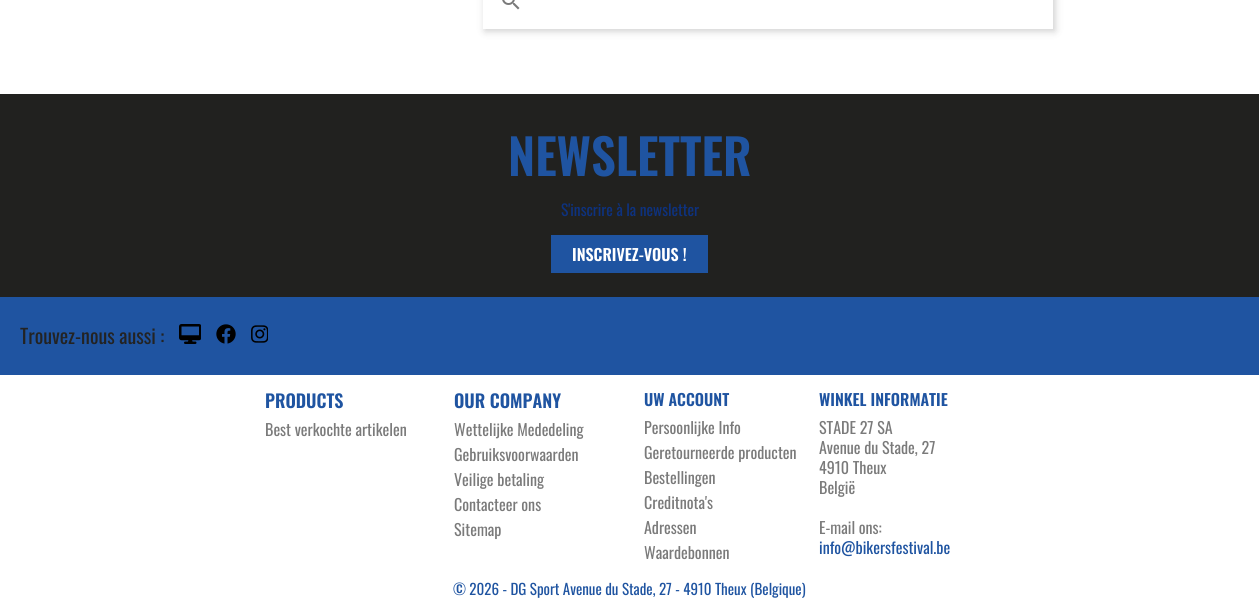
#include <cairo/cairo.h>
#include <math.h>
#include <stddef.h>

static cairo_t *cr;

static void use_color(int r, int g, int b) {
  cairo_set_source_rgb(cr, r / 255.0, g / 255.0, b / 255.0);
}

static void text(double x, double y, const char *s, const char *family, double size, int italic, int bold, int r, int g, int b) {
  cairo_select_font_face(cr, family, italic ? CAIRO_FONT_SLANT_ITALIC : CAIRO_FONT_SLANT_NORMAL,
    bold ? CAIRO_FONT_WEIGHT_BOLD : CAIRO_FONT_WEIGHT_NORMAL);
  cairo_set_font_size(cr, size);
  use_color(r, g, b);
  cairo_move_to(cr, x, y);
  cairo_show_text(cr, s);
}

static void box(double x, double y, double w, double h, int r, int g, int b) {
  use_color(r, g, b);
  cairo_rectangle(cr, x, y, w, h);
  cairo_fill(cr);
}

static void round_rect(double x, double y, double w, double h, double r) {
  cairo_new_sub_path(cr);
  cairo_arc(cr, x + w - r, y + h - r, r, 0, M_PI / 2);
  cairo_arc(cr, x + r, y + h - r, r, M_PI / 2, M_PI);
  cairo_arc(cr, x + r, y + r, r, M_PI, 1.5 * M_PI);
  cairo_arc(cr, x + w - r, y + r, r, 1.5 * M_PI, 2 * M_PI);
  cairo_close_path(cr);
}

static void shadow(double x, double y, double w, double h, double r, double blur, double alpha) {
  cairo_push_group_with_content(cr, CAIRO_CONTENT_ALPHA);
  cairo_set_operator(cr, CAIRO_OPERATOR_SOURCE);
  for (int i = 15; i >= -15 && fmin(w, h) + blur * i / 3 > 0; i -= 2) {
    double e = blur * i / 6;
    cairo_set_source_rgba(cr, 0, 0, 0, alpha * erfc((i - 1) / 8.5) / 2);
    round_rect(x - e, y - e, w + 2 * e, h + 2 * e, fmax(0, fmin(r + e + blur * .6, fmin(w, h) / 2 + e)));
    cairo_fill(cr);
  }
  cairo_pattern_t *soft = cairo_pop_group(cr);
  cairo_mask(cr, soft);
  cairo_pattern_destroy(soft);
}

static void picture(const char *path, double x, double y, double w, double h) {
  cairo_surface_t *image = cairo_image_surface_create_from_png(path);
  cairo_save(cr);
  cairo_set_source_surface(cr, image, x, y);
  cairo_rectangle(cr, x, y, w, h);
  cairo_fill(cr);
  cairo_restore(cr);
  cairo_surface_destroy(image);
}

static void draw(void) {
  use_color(255, 255, 255);
  cairo_paint(cr);
  cairo_save(cr);
  cairo_set_fill_rule(cr, CAIRO_FILL_RULE_EVEN_ODD);
  cairo_new_path(cr);
  cairo_move_to(cr, 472, 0);
  cairo_line_to(cr, 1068, 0);
  cairo_line_to(cr, 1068, 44);
  cairo_line_to(cr, 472, 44);
  cairo_close_path(cr);
  cairo_move_to(cr, 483, -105);
  cairo_line_to(cr, 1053, -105);
  cairo_line_to(cr, 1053, 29);
  cairo_line_to(cr, 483, 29);
  cairo_close_path(cr);
  cairo_clip(cr);
  use_color(0, 0, 0);
  shadow(485, -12, 570, 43, 0, 4, 0.2);
  cairo_restore(cr);
  picture("img_01.png", 502, 0, 18, 10);
  box(0, 94, 1259, 203, 33, 33, 31);
  box(0, 297, 1259, 78, 31, 84, 161);
  box(551, 235, 157, 38, 31, 84, 161);
  picture("img_02.png", 179, 324, 22, 20);
  picture("img_03.png", 216, 324, 20, 20);
  picture("img_04.png", 251, 325, 17, 18);
  text(508, 176, "NEWSLETTER", "Oswald SemiBold", 49, 0, 0, 31, 84, 161);
  text(561, 216, "S'inscrire à la newsletter", "Oswald", 15.5, 0, 0, 13, 50, 128);
  text(572, 261, "INSCRIVEZ-VOUS !", "Oswald SemiBold", 16, 0, 0, 255, 255, 255);
  text(20, 344, "Trouvez-nous aussi :", "Oswald", 20, 0, 0, 35, 35, 35);
  text(265, 408, "PRODUCTS", "Oswald SemiBold", 18, 0, 0, 31, 84, 161);
  text(265, 436, "Best verkochte artikelen", "Oswald", 16, 0, 0, 122, 122, 122);
  text(454, 408, "OUR COMPANY", "Oswald SemiBold", 18, 0, 0, 31, 84, 161);
  text(454, 436, "Wettelijke Mededeling", "Oswald", 16, 0, 0, 122, 122, 122);
  text(454, 461, "Gebruiksvoorwaarden", "Oswald", 16, 0, 0, 122, 122, 122);
  text(454, 486, "Veilige betaling", "Oswald", 16, 0, 0, 122, 122, 122);
  text(454, 511, "Contacteer ons", "Oswald", 16, 0, 0, 122, 122, 122);
  text(454, 536, "Sitemap", "Oswald", 16, 0, 0, 122, 122, 122);
  text(644, 406, "UW ACCOUNT", "Oswald SemiBold", 16, 0, 0, 31, 84, 161);
  text(644, 434, "Persoonlijke Info", "Oswald", 16, 0, 0, 122, 122, 122);
  text(644, 459, "Geretourneerde producten", "Oswald", 16, 0, 0, 122, 122, 122);
  text(644, 484, "Bestellingen", "Oswald", 16, 0, 0, 122, 122, 122);
  text(644, 509, "Creditnota's", "Oswald", 16, 0, 0, 122, 122, 122);
  text(644, 534, "Adressen", "Oswald", 16, 0, 0, 122, 122, 122);
  text(644, 559, "Waardebonnen", "Oswald", 16, 0, 0, 122, 122, 122);
  text(819, 406, "WINKEL INFORMATIE", "Oswald SemiBold", 16, 0, 0, 31, 84, 161);
  text(819, 434, "STADE 27 SA", "Oswald", 16, 0, 0, 122, 122, 122);
  text(819, 454, "Avenue du Stade, 27", "Oswald", 16, 0, 0, 122, 122, 122);
  text(819, 474, "4910 Theux", "Oswald", 16, 0, 0, 122, 122, 122);
  text(819, 494, "België", "Oswald", 16, 0, 0, 122, 122, 122);
  text(819, 534, "E-mail ons:", "Oswald", 16, 0, 0, 122, 122, 122);
  text(819, 554, "info@bikersfestival.be", "Oswald", 16, 0, 0, 31, 84, 161);
  text(453, 595, "© 2026 - DG Sport Avenue du Stade, 27 - 4910 Theux (Belgique)", "Oswald", 15, 0, 0, 31, 84, 161);
}

int main(void) {
  cairo_surface_t *surface = cairo_image_surface_create(CAIRO_FORMAT_RGB24, 1259, 614);
  cr = cairo_create(surface);
  cairo_font_options_t *options = cairo_font_options_create();
  cairo_font_options_set_hint_metrics(options, CAIRO_HINT_METRICS_OFF);
  cairo_font_options_set_hint_style(options, CAIRO_HINT_STYLE_NONE);
  cairo_set_font_options(cr, options);
  cairo_set_miter_limit(cr, 4);
  draw();
  cairo_surface_write_to_png(surface, "out.png");
  cairo_font_options_destroy(options);
  cairo_destroy(cr);
  cairo_surface_destroy(surface);
  return 0;
}
